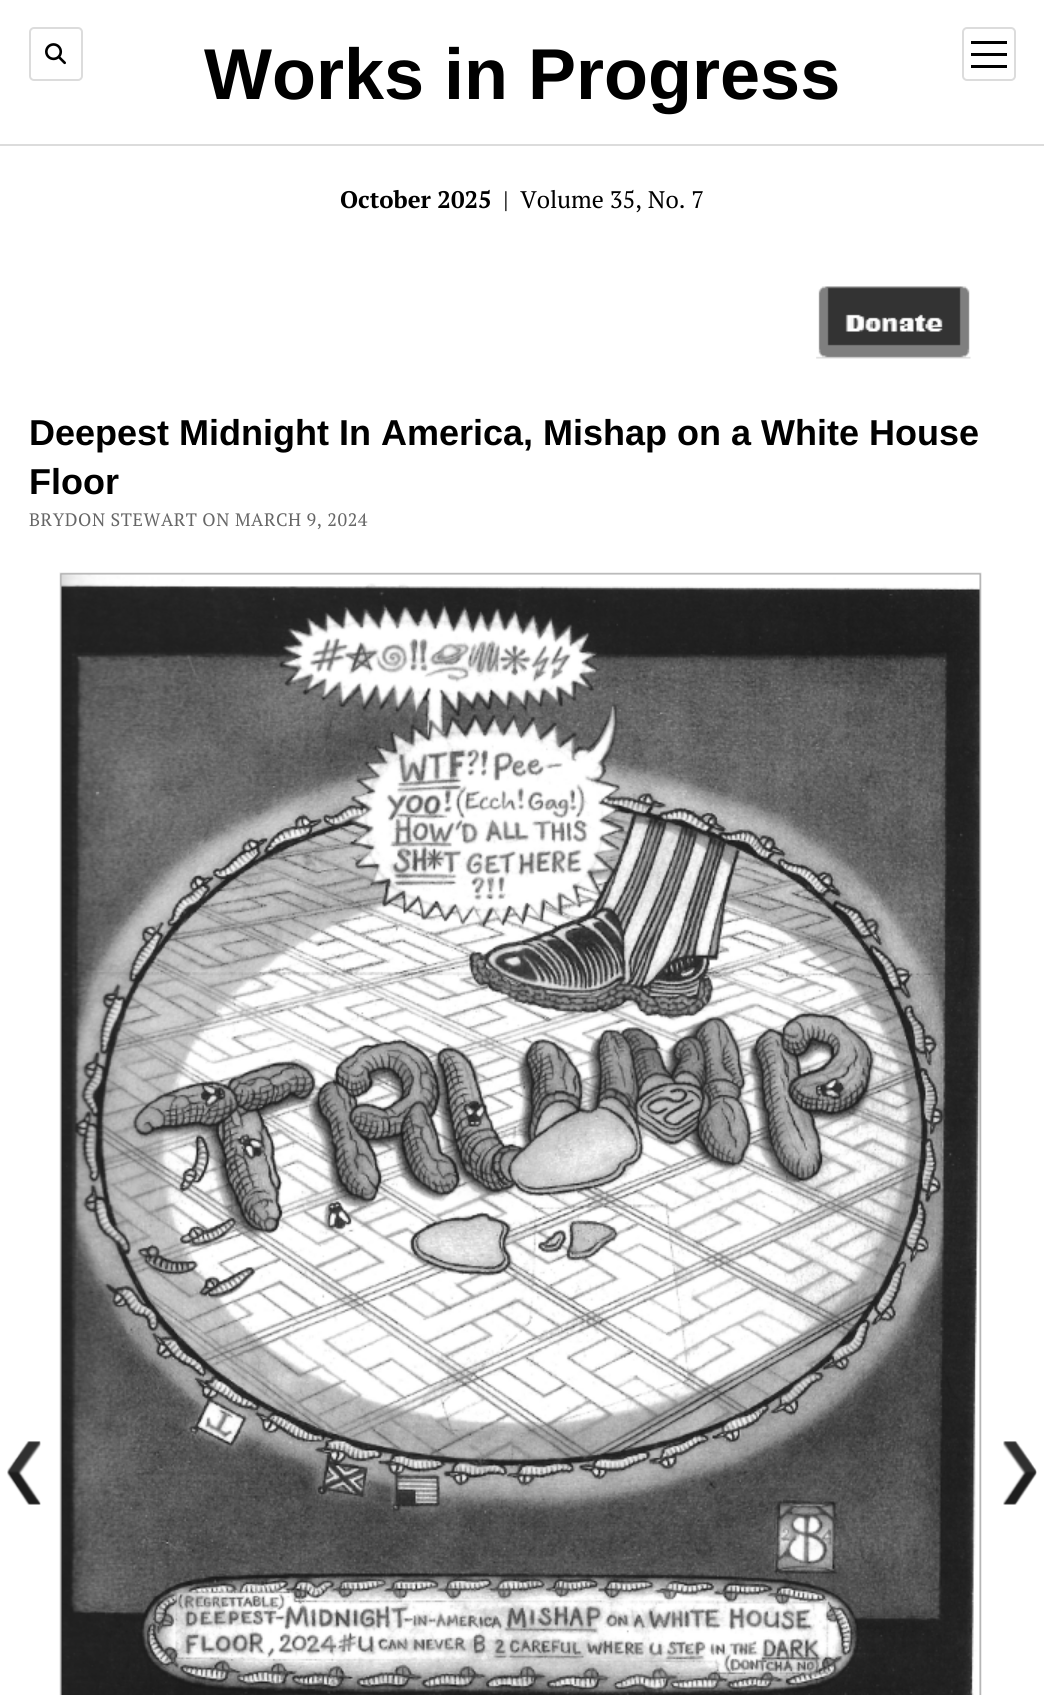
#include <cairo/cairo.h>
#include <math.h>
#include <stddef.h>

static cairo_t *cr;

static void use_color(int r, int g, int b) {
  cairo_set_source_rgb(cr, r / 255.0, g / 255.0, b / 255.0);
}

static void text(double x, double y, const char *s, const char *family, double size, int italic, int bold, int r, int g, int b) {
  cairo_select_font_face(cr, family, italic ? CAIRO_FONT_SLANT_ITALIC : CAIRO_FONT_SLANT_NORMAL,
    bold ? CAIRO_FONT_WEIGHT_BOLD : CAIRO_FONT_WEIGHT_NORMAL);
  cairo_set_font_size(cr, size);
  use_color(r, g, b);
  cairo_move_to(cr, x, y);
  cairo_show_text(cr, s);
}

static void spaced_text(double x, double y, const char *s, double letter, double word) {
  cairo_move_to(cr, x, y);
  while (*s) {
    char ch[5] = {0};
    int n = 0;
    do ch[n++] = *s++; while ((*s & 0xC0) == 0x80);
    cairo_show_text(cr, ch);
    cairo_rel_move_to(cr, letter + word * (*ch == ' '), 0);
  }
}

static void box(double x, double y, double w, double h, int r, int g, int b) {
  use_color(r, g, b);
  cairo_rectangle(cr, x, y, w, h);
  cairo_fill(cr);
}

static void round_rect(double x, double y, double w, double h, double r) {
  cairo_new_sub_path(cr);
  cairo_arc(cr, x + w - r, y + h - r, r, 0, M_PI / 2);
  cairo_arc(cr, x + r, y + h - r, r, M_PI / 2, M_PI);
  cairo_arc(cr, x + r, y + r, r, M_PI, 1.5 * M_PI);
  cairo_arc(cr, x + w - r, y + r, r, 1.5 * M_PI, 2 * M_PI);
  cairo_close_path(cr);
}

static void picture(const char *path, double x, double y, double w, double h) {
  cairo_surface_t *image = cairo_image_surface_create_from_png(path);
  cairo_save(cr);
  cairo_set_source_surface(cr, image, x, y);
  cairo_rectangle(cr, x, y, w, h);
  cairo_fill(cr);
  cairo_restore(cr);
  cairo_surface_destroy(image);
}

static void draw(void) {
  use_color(255, 255, 255);
  cairo_paint(cr);
  box(0, 144, 1044, 2, 220, 220, 220);
  round_rect(30, 28, 52, 52, 4);
  cairo_stroke(cr);
  picture("img_01.png", 45, 43, 21, 22);
  round_rect(963, 28, 52, 52, 4);
  cairo_stroke(cr);
  box(971, 41, 36, 3, 0, 0, 0);
  box(971, 53, 36, 3, 0, 0, 0);
  box(971, 65, 36, 3, 0, 0, 0);
  picture("img_02.png", 816, 286, 155, 73);
  picture("img_03.png", 59, 572, 923, 1123);
  picture("img_04.png", 7, 1441, 34, 64);
  picture("img_05.png", 1003, 1441, 34, 64);
  text(204, 99, "Works in Progress", "Liberation Sans", 72, 0, 1, 0, 0, 0);
  text(340, 208, "October 2025", "PT Serif", 24, 0, 1, 0, 0, 0);
  text(503, 208, "|  Volume 35, No. 7", "PT Serif", 24, 0, 0, 0, 0, 0);
  text(29, 445, "Deepest Midnight In America, Mishap on a White House", "Liberation Sans", 36, 0, 1, 0, 0, 0);
  text(29, 494, "Floor", "Liberation Sans", 36, 0, 1, 0, 0, 0);
  cairo_select_font_face(cr, "PT Serif", CAIRO_FONT_SLANT_NORMAL, CAIRO_FONT_WEIGHT_NORMAL);
  cairo_set_font_size(cr, 18);
  use_color(102, 102, 102);
  spaced_text(29, 526, "BRYDON STEWART ON MARCH 9, 2024", 0.55, 0);
}

int main(void) {
  cairo_surface_t *surface = cairo_image_surface_create(CAIRO_FORMAT_RGB24, 1044, 1695);
  cr = cairo_create(surface);
  cairo_font_options_t *options = cairo_font_options_create();
  cairo_font_options_set_hint_metrics(options, CAIRO_HINT_METRICS_OFF);
  cairo_font_options_set_hint_style(options, CAIRO_HINT_STYLE_NONE);
  cairo_set_font_options(cr, options);
  cairo_set_miter_limit(cr, 4);
  draw();
  cairo_surface_write_to_png(surface, "out.png");
  cairo_font_options_destroy(options);
  cairo_destroy(cr);
  cairo_surface_destroy(surface);
  return 0;
}
